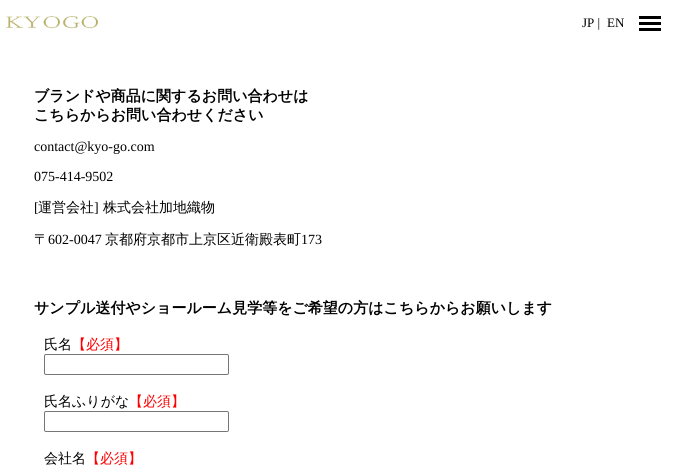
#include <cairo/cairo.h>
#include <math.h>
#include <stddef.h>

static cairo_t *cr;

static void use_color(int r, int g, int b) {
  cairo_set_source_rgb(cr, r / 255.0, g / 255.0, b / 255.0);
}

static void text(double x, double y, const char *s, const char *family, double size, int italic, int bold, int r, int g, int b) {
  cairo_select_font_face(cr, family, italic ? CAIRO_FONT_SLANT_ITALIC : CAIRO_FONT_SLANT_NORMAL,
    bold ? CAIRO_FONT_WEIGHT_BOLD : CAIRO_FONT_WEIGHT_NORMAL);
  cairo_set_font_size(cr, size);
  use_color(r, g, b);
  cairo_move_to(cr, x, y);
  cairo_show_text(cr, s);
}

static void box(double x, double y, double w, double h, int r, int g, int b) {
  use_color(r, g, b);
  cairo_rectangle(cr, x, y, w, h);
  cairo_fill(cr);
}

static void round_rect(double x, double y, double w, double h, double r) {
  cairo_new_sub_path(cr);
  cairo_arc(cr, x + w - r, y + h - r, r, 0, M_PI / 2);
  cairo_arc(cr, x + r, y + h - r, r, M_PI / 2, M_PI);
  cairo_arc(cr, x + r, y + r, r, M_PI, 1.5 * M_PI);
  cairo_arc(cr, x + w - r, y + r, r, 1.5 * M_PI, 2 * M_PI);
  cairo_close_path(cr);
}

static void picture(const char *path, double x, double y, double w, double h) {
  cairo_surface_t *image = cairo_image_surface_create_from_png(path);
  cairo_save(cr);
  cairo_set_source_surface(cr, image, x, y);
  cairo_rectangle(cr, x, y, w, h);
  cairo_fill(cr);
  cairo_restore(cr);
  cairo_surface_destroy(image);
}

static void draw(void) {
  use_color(255, 255, 255);
  cairo_paint(cr);
  picture("img_01.png", 6, 16, 92, 13);
  box(639, 16, 22, 3, 0, 0, 0);
  box(639, 22, 22, 3, 0, 0, 0);
  box(639, 28, 22, 3, 0, 0, 0);
  round_rect(44.5, 354.5, 184, 20, 1.5);
  use_color(118, 118, 118);
  cairo_set_line_width(cr, 1);
  cairo_stroke(cr);
  round_rect(44.5, 411.5, 184, 20, 1.5);
  cairo_stroke(cr);
  text(582, 27, "JP |", "Liberation Serif", 13, 0, 0, 0, 0, 0);
  text(607, 27, "EN", "Liberation Serif", 13, 0, 0, 0, 0, 0);
  text(34, 101, "ブランドや商品に関するお問い合わせは", "WenQuanYi Zen Hei", 15, 0, 1, 0, 0, 0);
  text(34, 120, "こちらからお問い合わせください", "WenQuanYi Zen Hei", 15, 0, 1, 0, 0, 0);
  text(34, 151, "contact@kyo-go.com", "Liberation Serif", 14, 0, 0, 0, 0, 0);
  text(34, 181, "075-414-9502", "Liberation Serif", 14, 0, 0, 0, 0, 0);
  text(34, 212, "[", "Liberation Serif", 14, 0, 0, 0, 0, 0);
  text(38, 212, "運営会社", "WenQuanYi Zen Hei Medium", 14, 0, 0, 0, 0, 0);
  text(94, 212, "]", "Liberation Serif", 14, 0, 0, 0, 0, 0);
  text(103, 212, "株式会社加地織物", "WenQuanYi Zen Hei Medium", 14, 0, 0, 0, 0, 0);
  text(34, 244, "〒", "WenQuanYi Zen Hei Medium", 14, 0, 0, 0, 0, 0);
  text(48, 244, "602-0047", "Liberation Serif", 14, 0, 0, 0, 0, 0);
  text(105, 244, "京都府京都市上京区近衛殿表町", "WenQuanYi Zen Hei Medium", 14, 0, 0, 0, 0, 0);
  text(301, 244, "173", "Liberation Serif", 14, 0, 0, 0, 0, 0);
  text(34, 313, "サンプル送付やショールーム見学等をご希望の方はこちらからお願いします", "WenQuanYi Zen Hei", 15, 0, 1, 0, 0, 0);
  text(44, 349, "氏名", "WenQuanYi Zen Hei Medium", 14, 0, 0, 0, 0, 0);
  text(72, 349, "【必須】", "WenQuanYi Zen Hei Medium", 14, 0, 0, 255, 0, 0);
  text(44, 406, "氏名ふりがな", "WenQuanYi Zen Hei Medium", 14, 0, 0, 0, 0, 0);
  text(129, 406, "【必須】", "WenQuanYi Zen Hei Medium", 14, 0, 0, 255, 0, 0);
  text(44, 463, "会社名", "WenQuanYi Zen Hei Medium", 14, 0, 0, 0, 0, 0);
  text(86, 463, "【必須】", "WenQuanYi Zen Hei Medium", 14, 0, 0, 255, 0, 0);
}

int main(void) {
  cairo_surface_t *surface = cairo_image_surface_create(CAIRO_FORMAT_RGB24, 674, 466);
  cr = cairo_create(surface);
  cairo_font_options_t *options = cairo_font_options_create();
  cairo_font_options_set_hint_metrics(options, CAIRO_HINT_METRICS_OFF);
  cairo_font_options_set_hint_style(options, CAIRO_HINT_STYLE_NONE);
  cairo_set_font_options(cr, options);
  cairo_set_miter_limit(cr, 4);
  draw();
  cairo_surface_write_to_png(surface, "out.png");
  cairo_font_options_destroy(options);
  cairo_destroy(cr);
  cairo_surface_destroy(surface);
  return 0;
}
